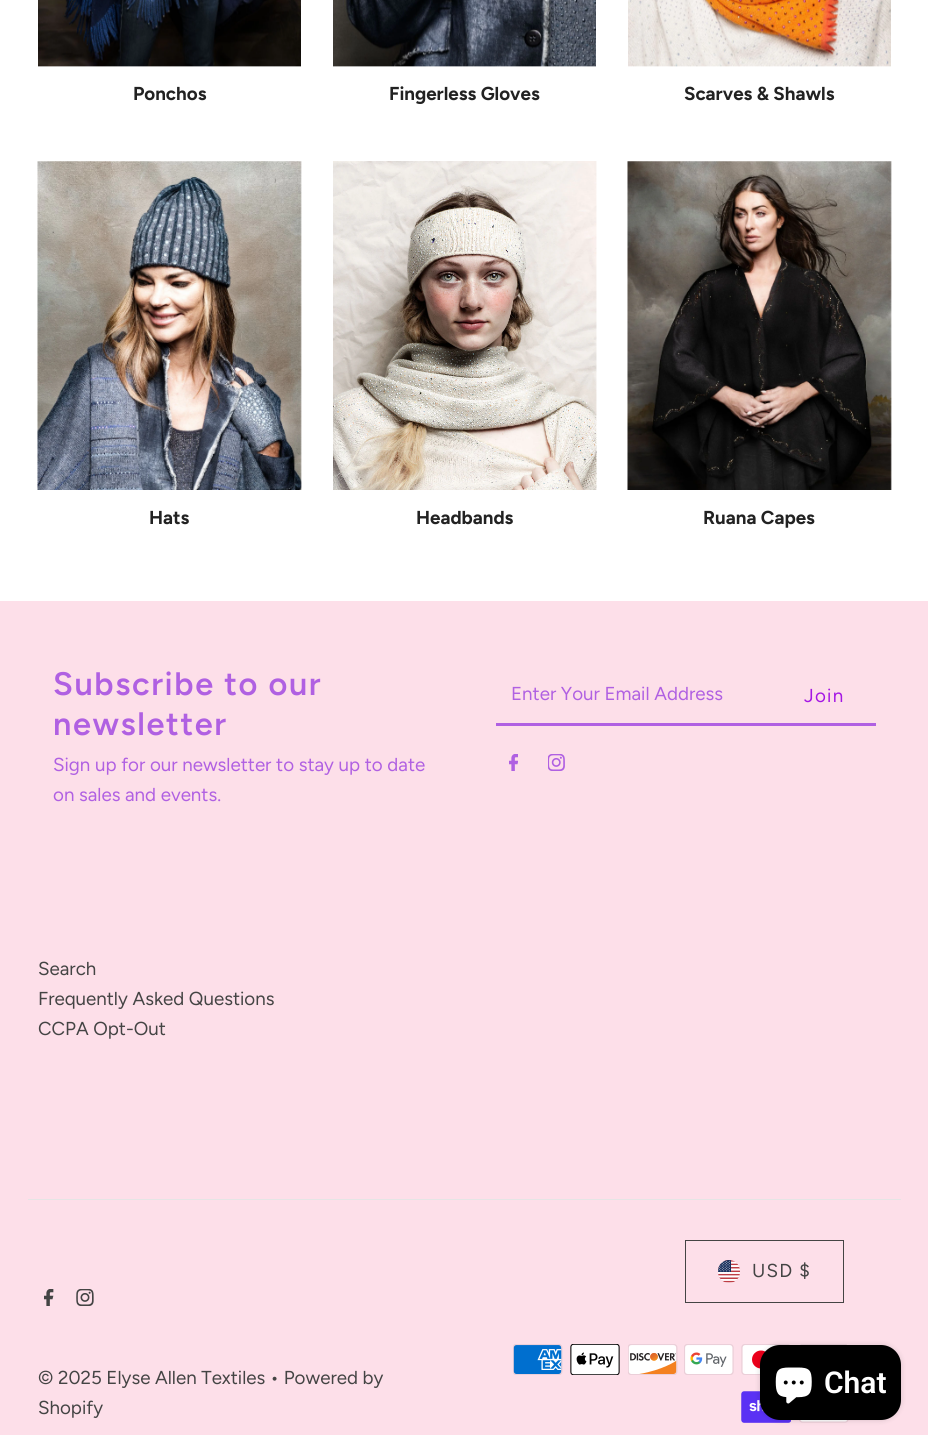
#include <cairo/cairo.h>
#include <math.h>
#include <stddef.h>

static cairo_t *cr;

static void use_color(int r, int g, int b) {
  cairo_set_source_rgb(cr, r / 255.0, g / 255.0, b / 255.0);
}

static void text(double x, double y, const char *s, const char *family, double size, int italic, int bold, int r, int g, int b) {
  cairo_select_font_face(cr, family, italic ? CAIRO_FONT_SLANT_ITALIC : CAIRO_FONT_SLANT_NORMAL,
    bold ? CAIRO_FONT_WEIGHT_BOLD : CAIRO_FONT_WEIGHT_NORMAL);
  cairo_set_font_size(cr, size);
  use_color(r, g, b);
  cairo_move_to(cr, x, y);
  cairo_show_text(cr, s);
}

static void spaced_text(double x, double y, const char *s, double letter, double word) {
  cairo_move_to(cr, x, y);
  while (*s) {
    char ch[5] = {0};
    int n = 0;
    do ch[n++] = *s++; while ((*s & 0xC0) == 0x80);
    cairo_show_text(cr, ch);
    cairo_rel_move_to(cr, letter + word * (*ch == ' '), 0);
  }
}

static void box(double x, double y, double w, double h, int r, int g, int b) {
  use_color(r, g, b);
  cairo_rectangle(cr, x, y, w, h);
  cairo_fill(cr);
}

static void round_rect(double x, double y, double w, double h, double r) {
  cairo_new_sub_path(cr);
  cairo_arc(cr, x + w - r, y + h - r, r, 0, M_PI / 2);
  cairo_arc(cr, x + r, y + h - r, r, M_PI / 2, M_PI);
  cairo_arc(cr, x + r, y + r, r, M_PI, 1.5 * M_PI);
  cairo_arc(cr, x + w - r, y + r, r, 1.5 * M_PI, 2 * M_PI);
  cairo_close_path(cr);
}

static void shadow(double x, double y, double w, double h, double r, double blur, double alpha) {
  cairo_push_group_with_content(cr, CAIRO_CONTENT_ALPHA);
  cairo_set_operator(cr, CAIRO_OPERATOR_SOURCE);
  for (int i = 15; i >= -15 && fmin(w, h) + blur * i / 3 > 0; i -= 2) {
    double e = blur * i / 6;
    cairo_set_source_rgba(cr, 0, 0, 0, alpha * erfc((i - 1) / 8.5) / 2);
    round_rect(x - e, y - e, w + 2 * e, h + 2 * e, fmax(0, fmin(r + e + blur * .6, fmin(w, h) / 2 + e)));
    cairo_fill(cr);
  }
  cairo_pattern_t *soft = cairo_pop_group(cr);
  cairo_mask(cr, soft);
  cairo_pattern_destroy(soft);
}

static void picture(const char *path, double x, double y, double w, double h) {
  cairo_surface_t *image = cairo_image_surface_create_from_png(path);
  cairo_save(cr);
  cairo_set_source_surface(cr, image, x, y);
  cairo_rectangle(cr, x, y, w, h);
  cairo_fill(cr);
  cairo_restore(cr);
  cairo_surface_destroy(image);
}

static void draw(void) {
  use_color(255, 255, 255);
  cairo_paint(cr);
  picture("img_01.png", 38, 0, 263, 67);
  picture("img_02.png", 333, 0, 263, 67);
  picture("img_03.png", 628, 0, 263, 67);
  picture("img_04.png", 37, 161, 265, 329);
  picture("img_05.png", 333, 161, 264, 329);
  picture("img_06.png", 627, 161, 265, 329);
  box(0, 601, 928, 834, 253, 223, 233);
  box(496, 723, 380, 3, 176, 96, 226);
  picture("img_07.png", 509, 754, 9, 17);
  picture("img_08.png", 548, 754, 17, 17);
  box(28, 1199, 873, 1, 229, 229, 229);
  cairo_rectangle(cr, 685.5, 1240.5, 158, 62);
  use_color(68, 68, 68);
  cairo_set_line_width(cr, 1);
  cairo_stroke(cr);
  picture("img_09.png", 718, 1260, 22, 23);
  picture("img_10.png", 513, 1344, 50, 31);
  picture("img_11.png", 570, 1344, 50, 31);
  picture("img_12.png", 628, 1344, 50, 31);
  picture("img_13.png", 684, 1344, 50, 31);
  picture("img_14.png", 741, 1344, 49, 31);
  picture("img_15.png", 800, 1344, 47, 1);
  picture("img_16.png", 741, 1391, 50, 32);
  picture("img_17.png", 799, 1420, 50, 3);
  picture("img_18.png", 44, 1289, 10, 17);
  picture("img_19.png", 76, 1289, 18, 17);
  use_color(0, 0, 0);
  shadow(760, 1345, 141, 75, 20, 3, 0.15);
  use_color(0, 0, 0);
  round_rect(760, 1345, 141, 75, 20);
  cairo_fill(cr);
  picture("img_20.png", 775, 1367, 37, 37);
  text(133, 100, "Ponchos", "Figtree", 18.75, 0, 1, 34, 34, 34);
  text(389, 100, "Fingerless Gloves", "Figtree", 18.75, 0, 1, 34, 34, 34);
  text(684, 100, "Scarves & Shawls", "Figtree", 18.75, 0, 1, 34, 34, 34);
  text(149, 524, "Hats", "Figtree", 18.75, 0, 1, 34, 34, 34);
  text(416, 524, "Headbands", "Figtree", 18.75, 0, 1, 34, 34, 34);
  text(703, 524, "Ruana Capes", "Figtree", 18.75, 0, 1, 34, 34, 34);
  cairo_select_font_face(cr, "Figtree SemiBold", CAIRO_FONT_SLANT_NORMAL, CAIRO_FONT_WEIGHT_NORMAL);
  cairo_set_font_size(cr, 32.5);
  use_color(176, 96, 226);
  spaced_text(53, 695, "Subscribe to our", 1.6, 0);
  spaced_text(53, 735, "newsletter", 1.6, 0);
  text(53, 771, "Sign up for our newsletter to stay up to date", "Figtree", 18.75, 0, 0, 176, 96, 226);
  text(53, 801, "on sales and events.", "Figtree", 18.75, 0, 0, 176, 96, 226);
  text(511, 700, "Enter Your Email Address", "Figtree", 18.75, 0, 0, 176, 96, 226);
  use_color(165, 24, 228);
  spaced_text(804, 702, "Join", 1.25, 0);
  text(38, 975, "Search", "Figtree", 18.75, 0, 0, 68, 68, 68);
  text(38, 1005, "Frequently Asked Questions", "Figtree", 18.75, 0, 0, 68, 68, 68);
  text(38, 1035, "CCPA Opt-Out", "Figtree", 18.75, 0, 0, 68, 68, 68);
  spaced_text(752, 1277, "USD $", 1.25, 0);
  text(38, 1384, "© 2025 Elyse Allen Textiles • Powered by", "Figtree", 18.75, 0, 0, 68, 68, 68);
  text(38, 1414, "Shopify", "Figtree", 18.75, 0, 0, 68, 68, 68);
  text(824, 1393, "Chat", "Roboto SemiBold", 30, 0, 0, 255, 255, 255);
}

int main(void) {
  cairo_surface_t *surface = cairo_image_surface_create(CAIRO_FORMAT_RGB24, 928, 1446);
  cr = cairo_create(surface);
  cairo_font_options_t *options = cairo_font_options_create();
  cairo_font_options_set_hint_metrics(options, CAIRO_HINT_METRICS_OFF);
  cairo_font_options_set_hint_style(options, CAIRO_HINT_STYLE_NONE);
  cairo_set_font_options(cr, options);
  cairo_set_miter_limit(cr, 4);
  draw();
  cairo_surface_write_to_png(surface, "out.png");
  cairo_font_options_destroy(options);
  cairo_destroy(cr);
  cairo_surface_destroy(surface);
  return 0;
}
